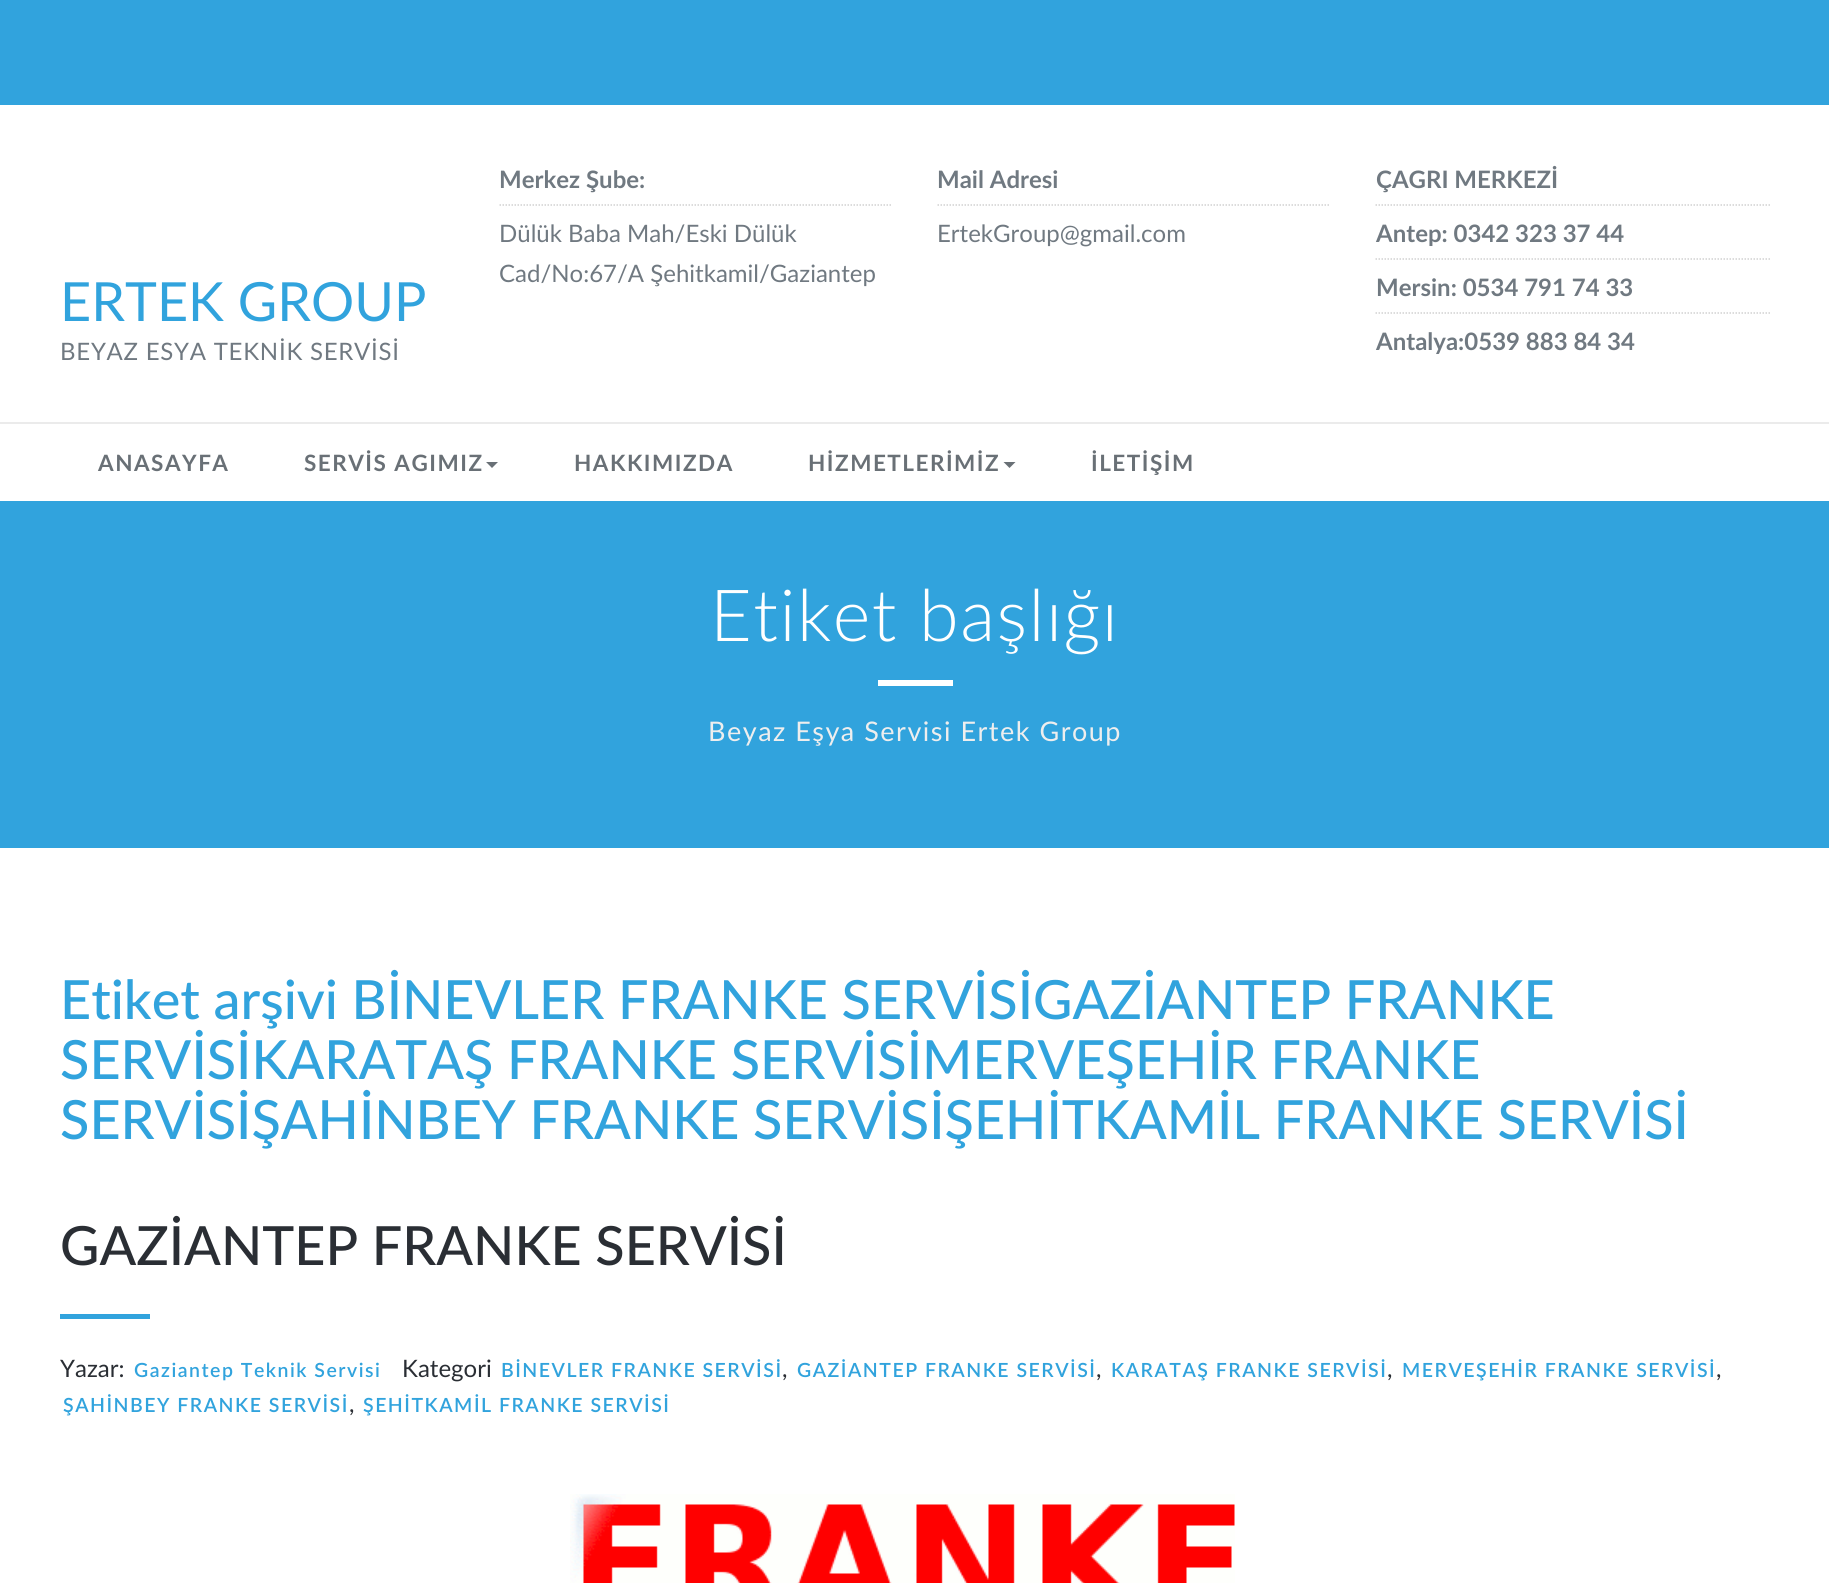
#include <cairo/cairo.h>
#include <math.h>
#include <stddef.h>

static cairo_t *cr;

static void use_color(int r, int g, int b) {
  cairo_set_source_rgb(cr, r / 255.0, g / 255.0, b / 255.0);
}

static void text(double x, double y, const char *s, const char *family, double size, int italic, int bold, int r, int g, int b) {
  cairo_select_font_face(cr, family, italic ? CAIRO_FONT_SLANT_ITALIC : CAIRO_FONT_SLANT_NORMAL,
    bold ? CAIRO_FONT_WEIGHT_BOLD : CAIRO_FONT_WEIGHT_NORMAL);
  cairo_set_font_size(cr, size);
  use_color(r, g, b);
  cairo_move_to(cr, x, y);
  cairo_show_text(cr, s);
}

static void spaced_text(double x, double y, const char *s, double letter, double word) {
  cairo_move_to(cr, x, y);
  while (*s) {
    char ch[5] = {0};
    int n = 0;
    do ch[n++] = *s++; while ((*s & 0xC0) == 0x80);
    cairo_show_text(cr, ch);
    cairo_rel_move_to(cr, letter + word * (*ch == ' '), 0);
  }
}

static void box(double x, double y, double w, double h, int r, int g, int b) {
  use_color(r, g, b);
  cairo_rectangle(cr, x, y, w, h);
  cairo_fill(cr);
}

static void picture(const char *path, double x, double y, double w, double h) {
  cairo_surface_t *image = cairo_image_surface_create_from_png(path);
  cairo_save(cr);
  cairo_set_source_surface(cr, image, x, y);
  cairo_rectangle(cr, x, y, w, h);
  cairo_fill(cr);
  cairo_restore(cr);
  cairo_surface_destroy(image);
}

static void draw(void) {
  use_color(255, 255, 255);
  cairo_paint(cr);
  box(0, 501, 1829, 347, 49, 163, 221);
  box(0, 0, 1829, 105, 49, 163, 221);
  cairo_new_path(cr);
  cairo_move_to(cr, 499.5, 205);
  cairo_line_to(cr, 892.5, 205);
  use_color(209, 209, 209);
  cairo_set_line_width(cr, 1.5);
  cairo_set_dash(cr, (double[]){1.5, 1.5}, 2, 0);
  cairo_stroke(cr);
  cairo_new_path(cr);
  cairo_move_to(cr, 937.5, 205);
  cairo_line_to(cr, 1330.5, 205);
  cairo_stroke(cr);
  cairo_new_path(cr);
  cairo_move_to(cr, 1375.5, 205);
  cairo_line_to(cr, 1770, 205);
  cairo_stroke(cr);
  cairo_new_path(cr);
  cairo_move_to(cr, 1375.5, 259);
  cairo_line_to(cr, 1770, 259);
  cairo_stroke(cr);
  cairo_new_path(cr);
  cairo_move_to(cr, 1375.5, 313);
  cairo_line_to(cr, 1770, 313);
  cairo_stroke(cr);
  box(0, 422, 1829, 2, 235, 235, 235);
  use_color(105, 112, 118);
  cairo_new_path(cr);
  cairo_move_to(cr, 486, 462);
  cairo_line_to(cr, 498, 462);
  cairo_line_to(cr, 492, 468);
  cairo_close_path(cr);
  cairo_fill(cr);
  cairo_new_path(cr);
  cairo_move_to(cr, 1003.5, 462);
  cairo_line_to(cr, 1015.5, 462);
  cairo_line_to(cr, 1009.5, 468);
  cairo_close_path(cr);
  cairo_fill(cr);
  box(878, 680, 75, 6, 255, 255, 255);
  box(60, 1314, 90, 5, 49, 163, 221);
  picture("img_01.png", 570, 1494, 665, 89);
  text(60, 321, "ERTEK GROUP", "Lato", 54, 0, 0, 49, 163, 221);
  cairo_set_font_size(cr, 24);
  use_color(112, 121, 129);
  spaced_text(60, 360, "BEYAZ ESYA TEKNİK SERVİSİ", 0.75, 0);
  text(499, 188, "Merkez Şube:", "Lato", 24, 0, 1, 112, 121, 129);
  text(499, 242, "Dülük Baba Mah/Eski Dülük", "Lato", 24, 0, 0, 112, 121, 129);
  text(499, 282, "Cad/No:67/A Şehitkamil/Gaziantep", "Lato", 24, 0, 0, 112, 121, 129);
  text(937, 188, "Mail Adresi", "Lato", 24, 0, 1, 112, 121, 129);
  text(937, 242, "ErtekGroup@gmail.com", "Lato", 24, 0, 0, 112, 121, 129);
  text(1376, 188, "ÇAGRI MERKEZİ", "Lato", 24, 0, 1, 112, 121, 129);
  text(1376, 242, "Antep: 0342 323 37 44", "Lato", 24, 0, 1, 112, 121, 129);
  text(1376, 296, "Mersin: 0534 791 74 33", "Lato", 24, 0, 1, 112, 121, 129);
  text(1376, 350, "Antalya:0539 883 84 34", "Lato", 24, 0, 1, 112, 121, 129);
  cairo_set_font_size(cr, 22.5);
  use_color(105, 112, 118);
  spaced_text(98, 471, "ANASAYFA", 1.5, 0);
  spaced_text(304, 471, "SERVİS AGIMIZ", 1.5, 0);
  spaced_text(574, 471, "HAKKIMIZDA", 1.5, 0);
  spaced_text(808, 471, "HİZMETLERİMİZ", 1.5, 0);
  spaced_text(1091, 471, "İLETİŞİM", 1.5, 0);
  cairo_select_font_face(cr, "Lato Light", CAIRO_FONT_SLANT_NORMAL, CAIRO_FONT_WEIGHT_NORMAL);
  cairo_set_font_size(cr, 72);
  use_color(255, 255, 255);
  spaced_text(710, 641, "Etiket başlığı", 1.5, 0);
  cairo_select_font_face(cr, "Lato", CAIRO_FONT_SLANT_NORMAL, CAIRO_FONT_WEIGHT_NORMAL);
  cairo_set_font_size(cr, 27);
  use_color(238, 238, 238);
  spaced_text(708, 741, "Beyaz Eşya Servisi Ertek Group", 1.5, 0);
  text(60, 1019, "Etiket arşivi BİNEVLER FRANKE SERVİSİGAZİANTEP FRANKE", "Lato Medium", 54, 0, 0, 49, 163, 221);
  text(60, 1079, "SERVİSİKARATAŞ FRANKE SERVİSİMERVEŞEHİR FRANKE", "Lato Medium", 54, 0, 0, 49, 163, 221);
  text(60, 1139, "SERVİSİŞAHİNBEY FRANKE SERVİSİŞEHİTKAMİL FRANKE SERVİSİ", "Lato Medium", 54, 0, 0, 49, 163, 221);
  text(60, 1265, "GAZİANTEP FRANKE SERVİSİ", "Lato Medium", 54, 0, 0, 42, 46, 52);
  text(60, 1377, "Yazar:", "Lato", 24, 0, 0, 42, 46, 52);
  cairo_select_font_face(cr, "Lato SemiBold", CAIRO_FONT_SLANT_NORMAL, CAIRO_FONT_WEIGHT_NORMAL);
  cairo_set_font_size(cr, 19.5);
  use_color(49, 163, 221);
  spaced_text(134, 1377, "Gaziantep Teknik Servisi", 1.5, 0);
  text(402, 1377, "Kategori", "Lato", 24, 0, 0, 42, 46, 52);
  cairo_select_font_face(cr, "Lato SemiBold", CAIRO_FONT_SLANT_NORMAL, CAIRO_FONT_WEIGHT_NORMAL);
  cairo_set_font_size(cr, 19.5);
  use_color(49, 163, 221);
  spaced_text(501, 1377, "BİNEVLER FRANKE SERVİSİ", 1.5, 0);
  text(782, 1377, ",", "Lato", 24, 0, 0, 42, 46, 52);
  cairo_select_font_face(cr, "Lato SemiBold", CAIRO_FONT_SLANT_NORMAL, CAIRO_FONT_WEIGHT_NORMAL);
  cairo_set_font_size(cr, 19.5);
  use_color(49, 163, 221);
  spaced_text(797, 1377, "GAZİANTEP FRANKE SERVİSİ", 1.5, 0);
  text(1096, 1377, ",", "Lato", 24, 0, 0, 42, 46, 52);
  cairo_select_font_face(cr, "Lato SemiBold", CAIRO_FONT_SLANT_NORMAL, CAIRO_FONT_WEIGHT_NORMAL);
  cairo_set_font_size(cr, 19.5);
  use_color(49, 163, 221);
  spaced_text(1111, 1377, "KARATAŞ FRANKE SERVİSİ", 1.5, 0);
  text(1387, 1377, ",", "Lato", 24, 0, 0, 42, 46, 52);
  cairo_select_font_face(cr, "Lato SemiBold", CAIRO_FONT_SLANT_NORMAL, CAIRO_FONT_WEIGHT_NORMAL);
  cairo_set_font_size(cr, 19.5);
  use_color(49, 163, 221);
  spaced_text(1402, 1377, "MERVEŞEHİR FRANKE SERVİSİ", 1.5, 0);
  text(1716, 1377, ",", "Lato", 24, 0, 0, 42, 46, 52);
  cairo_select_font_face(cr, "Lato SemiBold", CAIRO_FONT_SLANT_NORMAL, CAIRO_FONT_WEIGHT_NORMAL);
  cairo_set_font_size(cr, 19.5);
  use_color(49, 163, 221);
  spaced_text(63, 1412, "ŞAHİNBEY FRANKE SERVİSİ", 1.5, 0);
  text(349, 1412, ",", "Lato", 24, 0, 0, 42, 46, 52);
  cairo_select_font_face(cr, "Lato SemiBold", CAIRO_FONT_SLANT_NORMAL, CAIRO_FONT_WEIGHT_NORMAL);
  cairo_set_font_size(cr, 19.5);
  use_color(49, 163, 221);
  spaced_text(363, 1412, "ŞEHİTKAMİL FRANKE SERVİSİ", 1.5, 0);
}

int main(void) {
  cairo_surface_t *surface = cairo_image_surface_create(CAIRO_FORMAT_RGB24, 1829, 1583);
  cr = cairo_create(surface);
  cairo_font_options_t *options = cairo_font_options_create();
  cairo_font_options_set_hint_metrics(options, CAIRO_HINT_METRICS_OFF);
  cairo_font_options_set_hint_style(options, CAIRO_HINT_STYLE_NONE);
  cairo_set_font_options(cr, options);
  cairo_set_miter_limit(cr, 4);
  draw();
  cairo_surface_write_to_png(surface, "out.png");
  cairo_font_options_destroy(options);
  cairo_destroy(cr);
  cairo_surface_destroy(surface);
  return 0;
}
